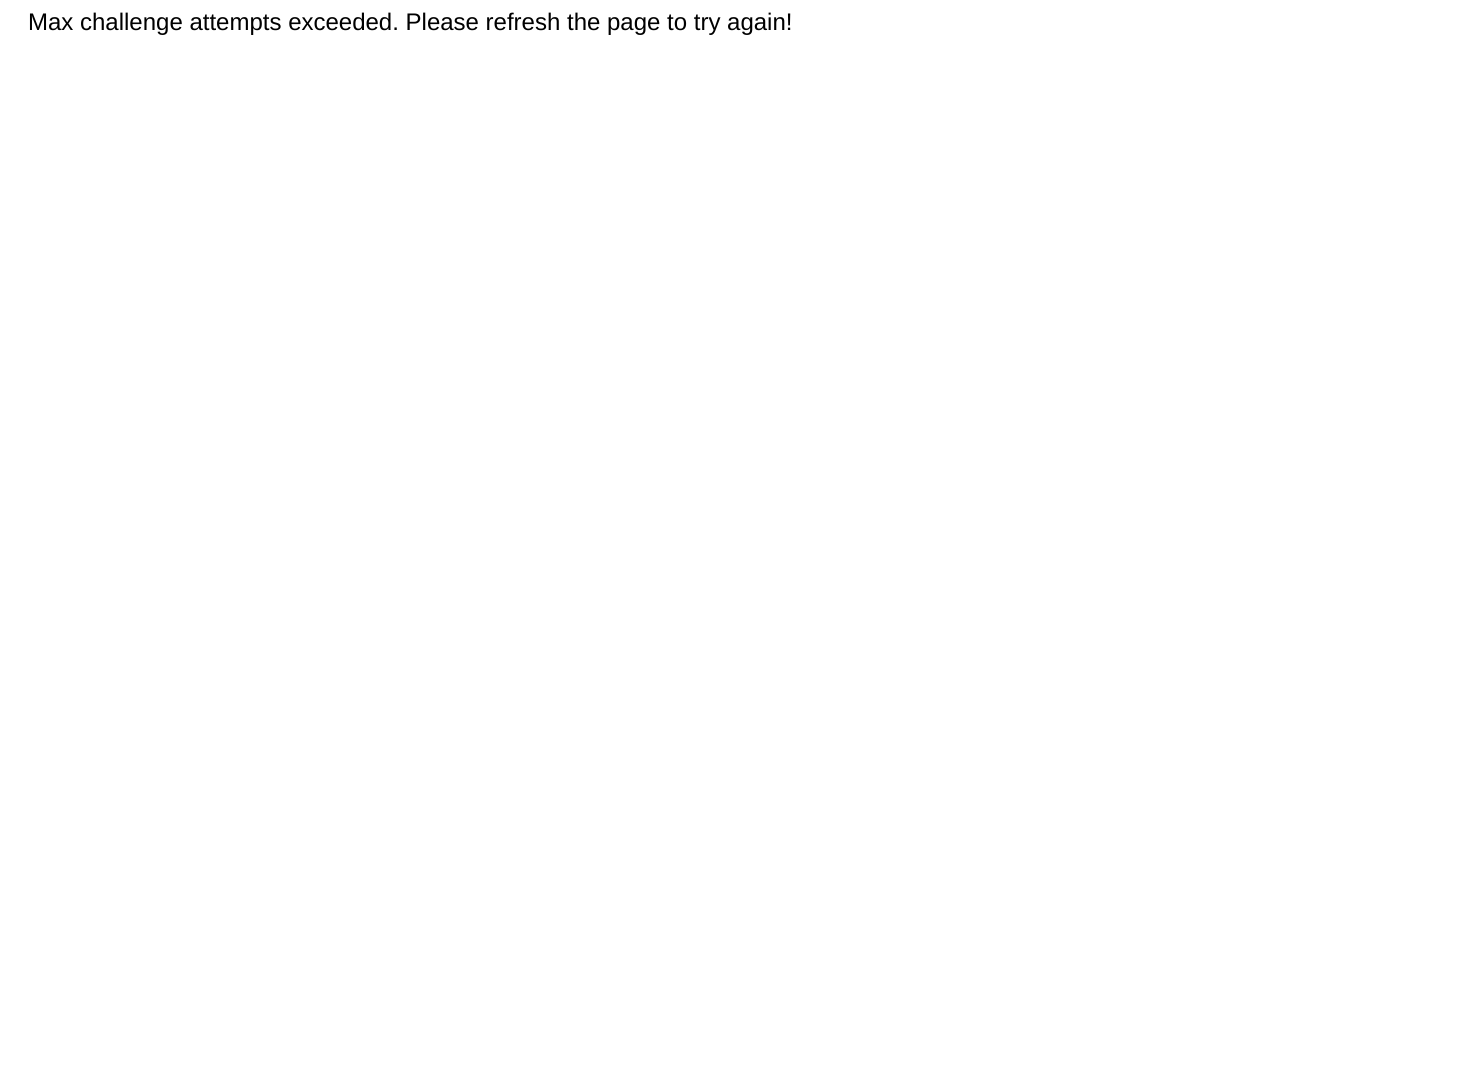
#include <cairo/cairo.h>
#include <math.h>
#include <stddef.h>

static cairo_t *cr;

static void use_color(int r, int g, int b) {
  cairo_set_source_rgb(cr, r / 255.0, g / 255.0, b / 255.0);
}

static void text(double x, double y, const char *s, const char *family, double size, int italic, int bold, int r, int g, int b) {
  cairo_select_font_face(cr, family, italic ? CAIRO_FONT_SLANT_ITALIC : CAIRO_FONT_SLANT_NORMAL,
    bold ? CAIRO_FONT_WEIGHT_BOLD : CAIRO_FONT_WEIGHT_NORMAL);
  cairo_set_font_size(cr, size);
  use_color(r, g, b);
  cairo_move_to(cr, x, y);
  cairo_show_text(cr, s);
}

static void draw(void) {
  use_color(255, 255, 255);
  cairo_paint(cr);
  text(28, 30, "Max challenge attempts exceeded. Please refresh the page to try again!", "Liberation Sans", 24, 0, 0, 0, 0, 0);
}

int main(void) {
  cairo_surface_t *surface = cairo_image_surface_create(CAIRO_FORMAT_RGB24, 1461, 1081);
  cr = cairo_create(surface);
  cairo_font_options_t *options = cairo_font_options_create();
  cairo_font_options_set_hint_metrics(options, CAIRO_HINT_METRICS_OFF);
  cairo_font_options_set_hint_style(options, CAIRO_HINT_STYLE_NONE);
  cairo_set_font_options(cr, options);
  cairo_set_miter_limit(cr, 4);
  draw();
  cairo_surface_write_to_png(surface, "out.png");
  cairo_font_options_destroy(options);
  cairo_destroy(cr);
  cairo_surface_destroy(surface);
  return 0;
}
